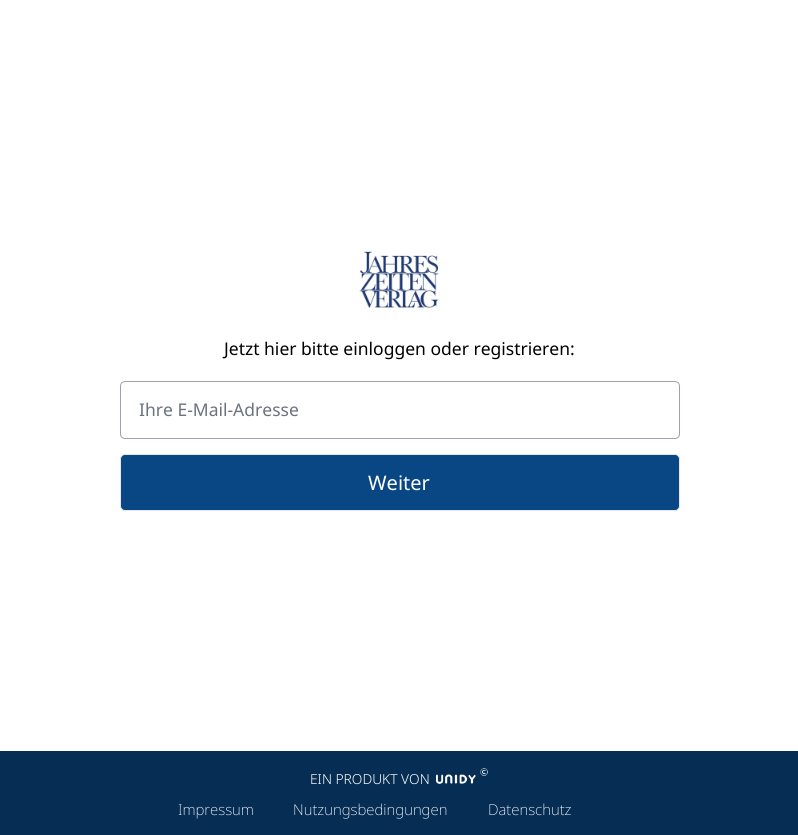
#include <cairo/cairo.h>
#include <math.h>
#include <stddef.h>

static cairo_t *cr;

static void use_color(int r, int g, int b) {
  cairo_set_source_rgb(cr, r / 255.0, g / 255.0, b / 255.0);
}

static void text(double x, double y, const char *s, const char *family, double size, int italic, int bold, int r, int g, int b) {
  cairo_select_font_face(cr, family, italic ? CAIRO_FONT_SLANT_ITALIC : CAIRO_FONT_SLANT_NORMAL,
    bold ? CAIRO_FONT_WEIGHT_BOLD : CAIRO_FONT_WEIGHT_NORMAL);
  cairo_set_font_size(cr, size);
  use_color(r, g, b);
  cairo_move_to(cr, x, y);
  cairo_show_text(cr, s);
}

static void box(double x, double y, double w, double h, int r, int g, int b) {
  use_color(r, g, b);
  cairo_rectangle(cr, x, y, w, h);
  cairo_fill(cr);
}

static void round_rect(double x, double y, double w, double h, double r) {
  cairo_new_sub_path(cr);
  cairo_arc(cr, x + w - r, y + h - r, r, 0, M_PI / 2);
  cairo_arc(cr, x + r, y + h - r, r, M_PI / 2, M_PI);
  cairo_arc(cr, x + r, y + r, r, M_PI, 1.5 * M_PI);
  cairo_arc(cr, x + w - r, y + r, r, 1.5 * M_PI, 2 * M_PI);
  cairo_close_path(cr);
}

static void picture(const char *path, double x, double y, double w, double h) {
  cairo_surface_t *image = cairo_image_surface_create_from_png(path);
  cairo_save(cr);
  cairo_set_source_surface(cr, image, x, y);
  cairo_rectangle(cr, x, y, w, h);
  cairo_fill(cr);
  cairo_restore(cr);
  cairo_surface_destroy(image);
}

static void draw(void) {
  use_color(255, 255, 255);
  cairo_paint(cr);
  picture("img_01.png", 359, 251, 80, 57);
  round_rect(120.5, 381.5, 559, 57, 4.5);
  use_color(156, 163, 175);
  cairo_set_line_width(cr, 1);
  cairo_stroke(cr);
  use_color(9, 71, 132);
  round_rect(120.5, 454.5, 559, 56, 4.5);
  cairo_fill_preserve(cr);
  use_color(229, 231, 235);
  cairo_stroke(cr);
  box(0, 751, 798, 84, 6, 45, 84);
  picture("img_02.png", 436, 768, 52, 16);
  text(224, 355, "Jetzt hier bitte einloggen oder registrieren:", "Noto Sans", 17.5, 0, 0, 0, 0, 0);
  text(139, 416, "Ihre E-Mail-Adresse", "Noto Sans", 17.5, 0, 0, 107, 114, 128);
  text(368, 490, "Weiter", "Noto Sans", 20, 0, 0, 255, 255, 255);
  text(310, 784, "EIN PRODUKT VON", "Noto Sans Light", 13.75, 0, 0, 255, 255, 255);
  text(178, 815, "Impressum", "Noto Sans ExtraLight", 15, 0, 0, 255, 255, 255);
  text(293, 815, "Nutzungsbedingungen", "Noto Sans ExtraLight", 15, 0, 0, 255, 255, 255);
  text(488, 815, "Datenschutz", "Noto Sans ExtraLight", 15, 0, 0, 255, 255, 255);
}

int main(void) {
  cairo_surface_t *surface = cairo_image_surface_create(CAIRO_FORMAT_RGB24, 798, 835);
  cr = cairo_create(surface);
  cairo_font_options_t *options = cairo_font_options_create();
  cairo_font_options_set_hint_metrics(options, CAIRO_HINT_METRICS_OFF);
  cairo_font_options_set_hint_style(options, CAIRO_HINT_STYLE_NONE);
  cairo_set_font_options(cr, options);
  cairo_set_miter_limit(cr, 4);
  draw();
  cairo_surface_write_to_png(surface, "out.png");
  cairo_font_options_destroy(options);
  cairo_destroy(cr);
  cairo_surface_destroy(surface);
  return 0;
}
